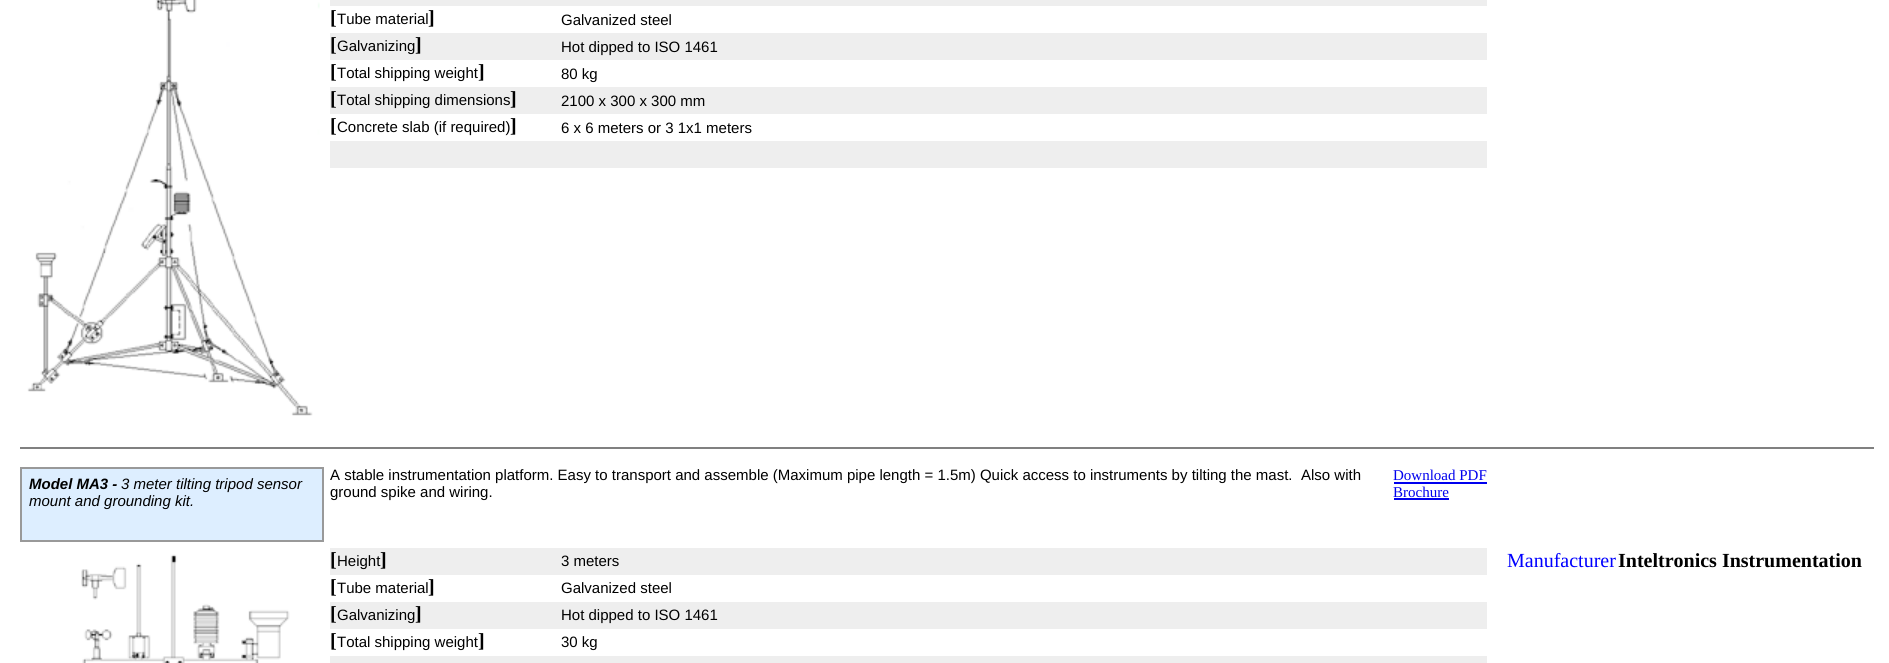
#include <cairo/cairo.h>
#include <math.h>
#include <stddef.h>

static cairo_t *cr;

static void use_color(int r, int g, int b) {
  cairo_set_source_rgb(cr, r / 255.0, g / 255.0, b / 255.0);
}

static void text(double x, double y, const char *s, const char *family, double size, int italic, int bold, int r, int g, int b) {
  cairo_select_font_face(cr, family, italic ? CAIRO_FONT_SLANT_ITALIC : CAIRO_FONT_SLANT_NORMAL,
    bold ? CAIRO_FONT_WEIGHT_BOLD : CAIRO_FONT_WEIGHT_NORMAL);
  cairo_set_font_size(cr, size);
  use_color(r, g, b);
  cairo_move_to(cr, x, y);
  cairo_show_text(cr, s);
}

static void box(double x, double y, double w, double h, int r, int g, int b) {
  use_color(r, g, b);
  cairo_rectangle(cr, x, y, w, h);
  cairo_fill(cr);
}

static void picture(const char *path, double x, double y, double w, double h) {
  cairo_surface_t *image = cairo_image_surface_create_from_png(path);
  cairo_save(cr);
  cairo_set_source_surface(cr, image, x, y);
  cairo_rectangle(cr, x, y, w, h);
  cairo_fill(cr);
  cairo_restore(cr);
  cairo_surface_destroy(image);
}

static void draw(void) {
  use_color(255, 255, 255);
  cairo_paint(cr);
  picture("img_01.png", 27, 0, 293, 416);
  box(330, 0, 1157, 6, 238, 238, 238);
  box(330, 33, 1157, 27, 238, 238, 238);
  box(330, 87, 1157, 27, 238, 238, 238);
  box(330, 141, 1157, 27, 238, 238, 238);
  box(20, 447, 1854, 2, 128, 128, 128);
  use_color(221, 238, 255);
  cairo_rectangle(cr, 21, 468, 302, 73);
  cairo_fill_preserve(cr);
  use_color(153, 153, 153);
  cairo_stroke(cr);
  box(1394, 482, 93, 2, 0, 0, 238);
  box(1394, 498, 55, 2, 0, 0, 238);
  picture("img_02.png", 81, 554, 209, 109);
  box(330, 548, 1157, 27, 238, 238, 238);
  box(330, 602, 1157, 27, 238, 238, 238);
  box(330, 656, 1157, 7, 238, 238, 238);
  text(330, 24, "[", "Liberation Serif", 20, 0, 1, 0, 0, 0);
  text(337, 24, "Tube material", "Liberation Sans", 15, 0, 0, 0, 0, 0);
  text(428, 24, "]", "Liberation Serif", 20, 0, 1, 0, 0, 0);
  text(561, 25, "Galvanized steel", "Liberation Sans", 15, 0, 0, 0, 0, 0);
  text(330, 51, "[", "Liberation Serif", 20, 0, 1, 0, 0, 0);
  text(337, 51, "Galvanizing", "Liberation Sans", 15, 0, 0, 0, 0, 0);
  text(415, 51, "]", "Liberation Serif", 20, 0, 1, 0, 0, 0);
  text(561, 52, "Hot dipped to ISO 1461", "Liberation Sans", 15, 0, 0, 0, 0, 0);
  text(330, 78, "[", "Liberation Serif", 20, 0, 1, 0, 0, 0);
  text(337, 78, "Total shipping weight", "Liberation Sans", 15, 0, 0, 0, 0, 0);
  text(478, 78, "]", "Liberation Serif", 20, 0, 1, 0, 0, 0);
  text(561, 79, "80 kg", "Liberation Sans", 15, 0, 0, 0, 0, 0);
  text(330, 105, "[", "Liberation Serif", 20, 0, 1, 0, 0, 0);
  text(337, 105, "Total shipping dimensions", "Liberation Sans", 15, 0, 0, 0, 0, 0);
  text(510, 105, "]", "Liberation Serif", 20, 0, 1, 0, 0, 0);
  text(561, 106, "2100 x 300 x 300 mm", "Liberation Sans", 15, 0, 0, 0, 0, 0);
  text(330, 132, "[", "Liberation Serif", 20, 0, 1, 0, 0, 0);
  text(337, 132, "Concrete slab (if required)", "Liberation Sans", 15, 0, 0, 0, 0, 0);
  text(510, 132, "]", "Liberation Serif", 20, 0, 1, 0, 0, 0);
  text(561, 133, "6 x 6 meters or 3 1x1 meters", "Liberation Sans", 15, 0, 0, 0, 0, 0);
  text(29, 489, "Model MA3 -", "Liberation Sans", 15, 1, 1, 0, 0, 0);
  text(121, 489, "3 meter tilting tripod sensor", "Liberation Sans", 15, 1, 0, 0, 0, 0);
  text(29, 506, "mount and grounding kit.", "Liberation Sans", 15, 1, 0, 0, 0, 0);
  text(330, 480, "A stable instrumentation platform. Easy to transport and assemble (Maximum pipe length = 1.5m) Quick access to instruments by tilting the mast.", "Liberation Sans", 15, 0, 0, 0, 0, 0);
  text(1301, 480, "Also with", "Liberation Sans", 15, 0, 0, 0, 0, 0);
  text(330, 497, "ground spike and wiring.", "Liberation Sans", 15, 0, 0, 0, 0, 0);
  text(1393, 480, "Download PDF", "Liberation Serif", 15, 0, 0, 0, 0, 238);
  text(1393, 497, "Brochure", "Liberation Serif", 15, 0, 0, 0, 0, 238);
  text(330, 566, "[", "Liberation Serif", 20, 0, 1, 0, 0, 0);
  text(337, 566, "Height", "Liberation Sans", 15, 0, 0, 0, 0, 0);
  text(380, 566, "]", "Liberation Serif", 20, 0, 1, 0, 0, 0);
  text(561, 566, "3 meters", "Liberation Sans", 15, 0, 0, 0, 0, 0);
  text(330, 593, "[", "Liberation Serif", 20, 0, 1, 0, 0, 0);
  text(337, 593, "Tube material", "Liberation Sans", 15, 0, 0, 0, 0, 0);
  text(428, 593, "]", "Liberation Serif", 20, 0, 1, 0, 0, 0);
  text(561, 593, "Galvanized steel", "Liberation Sans", 15, 0, 0, 0, 0, 0);
  text(330, 620, "[", "Liberation Serif", 20, 0, 1, 0, 0, 0);
  text(337, 620, "Galvanizing", "Liberation Sans", 15, 0, 0, 0, 0, 0);
  text(415, 620, "]", "Liberation Serif", 20, 0, 1, 0, 0, 0);
  text(561, 620, "Hot dipped to ISO 1461", "Liberation Sans", 15, 0, 0, 0, 0, 0);
  text(330, 647, "[", "Liberation Serif", 20, 0, 1, 0, 0, 0);
  text(337, 647, "Total shipping weight", "Liberation Sans", 15, 0, 0, 0, 0, 0);
  text(478, 647, "]", "Liberation Serif", 20, 0, 1, 0, 0, 0);
  text(561, 647, "30 kg", "Liberation Sans", 15, 0, 0, 0, 0, 0);
  text(1507, 567, "Manufacturer", "Liberation Serif", 20, 0, 0, 0, 0, 255);
  text(1618, 567, "Inteltronics Instrumentation", "Liberation Serif", 20, 0, 1, 0, 0, 0);
}

int main(void) {
  cairo_surface_t *surface = cairo_image_surface_create(CAIRO_FORMAT_RGB24, 1889, 663);
  cr = cairo_create(surface);
  cairo_font_options_t *options = cairo_font_options_create();
  cairo_font_options_set_hint_metrics(options, CAIRO_HINT_METRICS_OFF);
  cairo_font_options_set_hint_style(options, CAIRO_HINT_STYLE_NONE);
  cairo_set_font_options(cr, options);
  cairo_set_miter_limit(cr, 4);
  draw();
  cairo_surface_write_to_png(surface, "out.png");
  cairo_font_options_destroy(options);
  cairo_destroy(cr);
  cairo_surface_destroy(surface);
  return 0;
}
